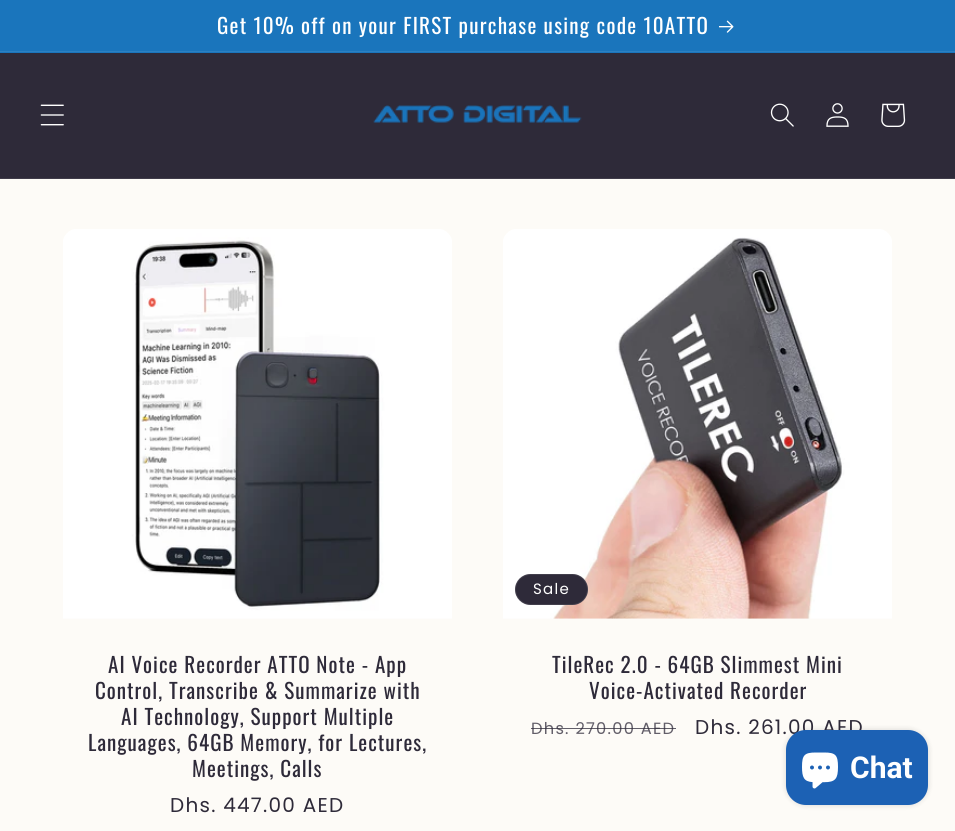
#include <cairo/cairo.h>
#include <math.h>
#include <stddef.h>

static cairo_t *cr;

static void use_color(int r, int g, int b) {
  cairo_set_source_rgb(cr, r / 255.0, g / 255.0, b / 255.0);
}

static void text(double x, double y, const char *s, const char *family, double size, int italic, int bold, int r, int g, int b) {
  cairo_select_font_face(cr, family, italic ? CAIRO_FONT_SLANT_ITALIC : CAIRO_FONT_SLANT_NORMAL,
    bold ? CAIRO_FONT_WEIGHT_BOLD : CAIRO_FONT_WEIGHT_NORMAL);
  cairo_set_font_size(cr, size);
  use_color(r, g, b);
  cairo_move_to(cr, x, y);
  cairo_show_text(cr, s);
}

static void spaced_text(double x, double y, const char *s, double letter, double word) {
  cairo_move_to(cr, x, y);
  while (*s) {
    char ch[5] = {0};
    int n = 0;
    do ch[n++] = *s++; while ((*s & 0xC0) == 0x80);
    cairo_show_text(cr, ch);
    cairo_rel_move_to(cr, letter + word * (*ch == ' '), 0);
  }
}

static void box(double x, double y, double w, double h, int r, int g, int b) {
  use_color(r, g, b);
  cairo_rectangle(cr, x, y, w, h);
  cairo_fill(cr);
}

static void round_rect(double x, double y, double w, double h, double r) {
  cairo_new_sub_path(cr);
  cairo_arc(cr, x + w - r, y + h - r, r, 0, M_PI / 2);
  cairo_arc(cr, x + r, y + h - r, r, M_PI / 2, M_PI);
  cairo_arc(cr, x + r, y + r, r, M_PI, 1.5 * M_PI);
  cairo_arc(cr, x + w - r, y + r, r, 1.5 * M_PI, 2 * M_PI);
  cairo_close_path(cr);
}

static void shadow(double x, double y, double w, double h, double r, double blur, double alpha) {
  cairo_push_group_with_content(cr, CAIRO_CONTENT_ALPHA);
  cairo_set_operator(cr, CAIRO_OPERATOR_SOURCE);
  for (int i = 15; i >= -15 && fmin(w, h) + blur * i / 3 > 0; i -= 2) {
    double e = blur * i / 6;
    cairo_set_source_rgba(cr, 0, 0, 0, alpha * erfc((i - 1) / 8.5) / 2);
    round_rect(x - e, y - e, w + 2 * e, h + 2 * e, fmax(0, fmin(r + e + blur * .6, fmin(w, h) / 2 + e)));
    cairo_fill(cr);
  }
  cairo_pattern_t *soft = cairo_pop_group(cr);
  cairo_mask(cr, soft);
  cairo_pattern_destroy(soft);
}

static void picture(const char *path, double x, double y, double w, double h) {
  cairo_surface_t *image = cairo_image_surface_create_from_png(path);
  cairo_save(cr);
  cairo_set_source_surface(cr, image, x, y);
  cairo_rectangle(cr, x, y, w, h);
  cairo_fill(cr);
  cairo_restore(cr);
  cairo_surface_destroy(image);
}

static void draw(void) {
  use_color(253, 251, 247);
  cairo_paint(cr);
  box(0, 0, 955, 53, 26, 117, 188);
  box(0, 51, 955, 1, 44, 128, 193);
  picture("img_01.png", 719, 20, 15, 13);
  box(0, 53, 955, 125, 46, 42, 57);
  box(0, 178, 955, 1, 63, 59, 73);
  picture("img_02.png", 40, 104, 24, 22);
  picture("img_03.png", 373, 105, 209, 18);
  picture("img_04.png", 770, 103, 24, 24);
  picture("img_05.png", 826, 103, 23, 24);
  picture("img_06.png", 881, 103, 25, 24);
  picture("img_07.png", 63, 229, 389, 390);
  picture("img_08.png", 503, 229, 389, 390);
  use_color(46, 42, 57);
  round_rect(515, 574, 73, 31, 15.5);
  cairo_fill(cr);
  round_rect(515.5, 574.5, 72, 30, 15);
  cairo_set_source_rgba(cr, 1, 1, 1, 0.1);
  cairo_set_line_width(cr, 1);
  cairo_stroke(cr);
  use_color(0, 0, 0);
  shadow(786, 730, 142, 75, 20, 3, 0.15);
  cairo_select_font_face(cr, "Oswald", CAIRO_FONT_SLANT_NORMAL, CAIRO_FONT_WEIGHT_NORMAL);
  cairo_set_font_size(cr, 21.1);
  use_color(255, 255, 255);
  spaced_text(217, 34, "Get 10% off on your FIRST purchase using code 10ATTO", 1.25, 0);
  use_color(46, 42, 57);
  spaced_text(108, 673, "AI Voice Recorder ATTO Note - App", 1, 0);
  spaced_text(95, 699, "Control, Transcribe & Summarize with", 1, 0);
  spaced_text(121, 725, "AI Technology, Support Multiple", 1, 0);
  spaced_text(88, 751, "Languages, 64GB Memory, for Lectures,", 1, 0);
  spaced_text(192, 777, "Meetings, Calls", 1, 0);
  cairo_select_font_face(cr, "Poppins", CAIRO_FONT_SLANT_NORMAL, CAIRO_FONT_WEIGHT_NORMAL);
  cairo_set_font_size(cr, 20);
  spaced_text(170, 812, "Dhs. 447.00 AED", 1.25, 0);
  cairo_set_font_size(cr, 15);
  use_color(255, 255, 255);
  spaced_text(533, 594, "Sale", 1.25, 0);
  cairo_select_font_face(cr, "Oswald", CAIRO_FONT_SLANT_NORMAL, CAIRO_FONT_WEIGHT_NORMAL);
  cairo_set_font_size(cr, 21.1);
  use_color(46, 42, 57);
  spaced_text(552, 673, "TileRec 2.0 - 64GB Slimmest Mini", 1, 0);
  spaced_text(589, 699, "Voice-Activated Recorder", 1, 0);
  cairo_select_font_face(cr, "Poppins", CAIRO_FONT_SLANT_NORMAL, CAIRO_FONT_WEIGHT_NORMAL);
  cairo_set_font_size(cr, 16.25);
  use_color(98, 94, 105);
  spaced_text(531, 734, "Dhs. 270.00 AED", 1.25, 0);
  cairo_set_source_rgba(cr, 0.18, 0.165, 0.224, 0.75);
  cairo_rectangle(cr, 531, 728, 145, 1);
  cairo_fill(cr);
  cairo_set_font_size(cr, 20);
  use_color(46, 42, 57);
  spaced_text(695, 734, "Dhs. 261.00 AED", 1.25, 0);
  use_color(28, 97, 180);
  round_rect(786, 730, 142, 75, 20);
  cairo_fill(cr);
  picture("img_09.png", 802, 752, 36, 37);
  text(850, 778, "Chat", "Roboto", 30, 0, 1, 255, 255, 255);
}

int main(void) {
  cairo_surface_t *surface = cairo_image_surface_create(CAIRO_FORMAT_RGB24, 955, 831);
  cr = cairo_create(surface);
  cairo_font_options_t *options = cairo_font_options_create();
  cairo_font_options_set_hint_metrics(options, CAIRO_HINT_METRICS_OFF);
  cairo_font_options_set_hint_style(options, CAIRO_HINT_STYLE_NONE);
  cairo_set_font_options(cr, options);
  cairo_set_miter_limit(cr, 4);
  draw();
  cairo_surface_write_to_png(surface, "out.png");
  cairo_font_options_destroy(options);
  cairo_destroy(cr);
  cairo_surface_destroy(surface);
  return 0;
}
